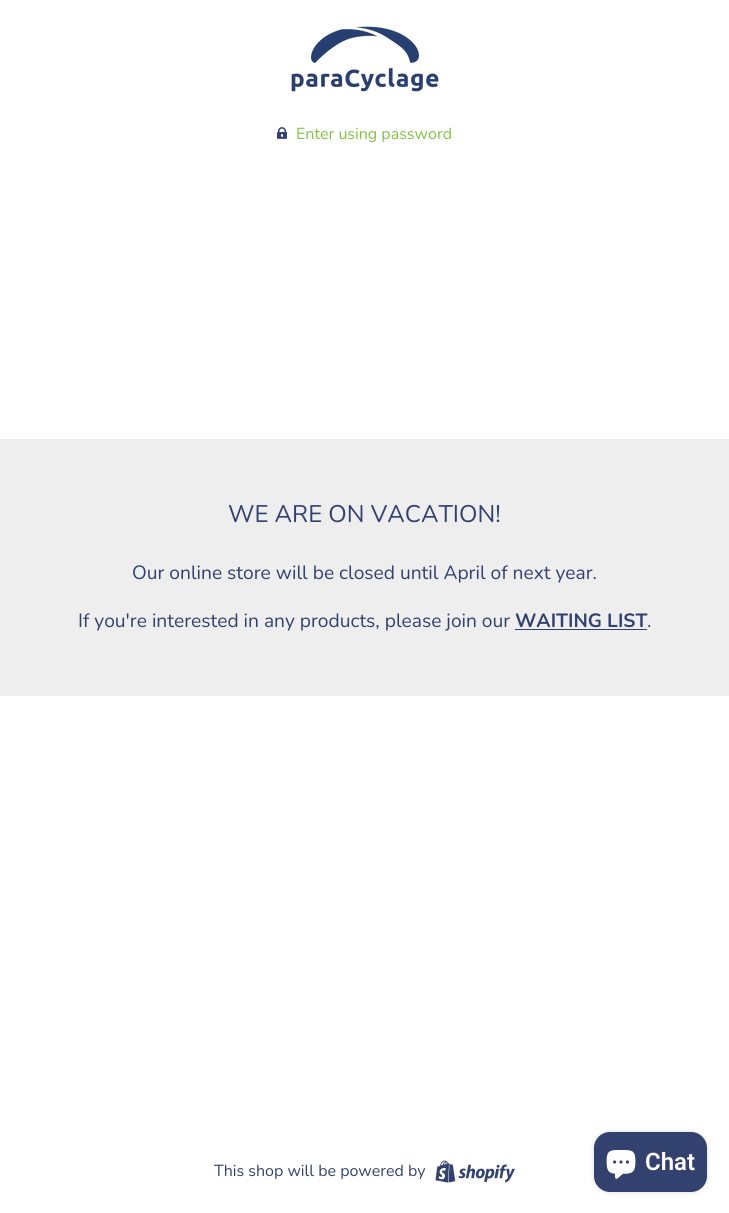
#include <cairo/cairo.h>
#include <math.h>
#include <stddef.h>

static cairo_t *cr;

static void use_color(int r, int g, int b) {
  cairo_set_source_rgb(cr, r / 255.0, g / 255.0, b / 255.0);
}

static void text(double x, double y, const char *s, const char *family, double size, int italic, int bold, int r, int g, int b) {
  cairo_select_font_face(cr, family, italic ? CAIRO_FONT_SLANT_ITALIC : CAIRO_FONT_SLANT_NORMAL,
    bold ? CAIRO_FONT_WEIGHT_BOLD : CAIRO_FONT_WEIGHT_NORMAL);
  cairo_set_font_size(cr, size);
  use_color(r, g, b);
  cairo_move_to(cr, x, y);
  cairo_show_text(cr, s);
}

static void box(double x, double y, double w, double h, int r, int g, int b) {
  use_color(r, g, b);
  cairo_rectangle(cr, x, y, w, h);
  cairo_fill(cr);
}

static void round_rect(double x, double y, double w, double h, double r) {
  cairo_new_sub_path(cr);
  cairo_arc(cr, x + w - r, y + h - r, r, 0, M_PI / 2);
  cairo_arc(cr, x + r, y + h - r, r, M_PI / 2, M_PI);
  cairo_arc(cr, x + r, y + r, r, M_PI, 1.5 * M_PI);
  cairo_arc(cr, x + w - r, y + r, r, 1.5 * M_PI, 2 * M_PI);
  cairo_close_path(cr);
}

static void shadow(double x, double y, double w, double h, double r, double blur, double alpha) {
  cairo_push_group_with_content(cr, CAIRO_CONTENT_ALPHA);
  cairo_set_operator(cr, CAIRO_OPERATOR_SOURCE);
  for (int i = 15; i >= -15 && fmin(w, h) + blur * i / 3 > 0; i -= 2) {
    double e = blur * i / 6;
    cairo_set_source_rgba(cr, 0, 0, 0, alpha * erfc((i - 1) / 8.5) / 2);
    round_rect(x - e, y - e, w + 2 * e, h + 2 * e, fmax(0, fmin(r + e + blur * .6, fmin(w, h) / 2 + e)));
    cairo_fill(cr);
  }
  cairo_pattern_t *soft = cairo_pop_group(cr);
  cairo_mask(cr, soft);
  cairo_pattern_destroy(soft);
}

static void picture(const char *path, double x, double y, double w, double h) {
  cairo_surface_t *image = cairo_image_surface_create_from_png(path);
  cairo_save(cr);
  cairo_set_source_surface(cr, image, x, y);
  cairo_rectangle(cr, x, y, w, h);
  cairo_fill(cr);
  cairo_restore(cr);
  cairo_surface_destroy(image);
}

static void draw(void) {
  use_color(255, 255, 255);
  cairo_paint(cr);
  picture("img_01.png", 291, 26, 148, 66);
  picture("img_02.png", 277, 127, 10, 12);
  box(0, 439, 729, 257, 238, 238, 238);
  box(515, 629, 132, 1, 51, 65, 110);
  picture("img_03.png", 435, 1160, 80, 23);
  use_color(0, 0, 0);
  shadow(594, 1132, 113, 60, 16, 2.5, 0.15);
  use_color(51, 65, 110);
  round_rect(594, 1132, 113, 60, 16);
  cairo_fill(cr);
  picture("img_04.png", 606, 1150, 30, 29);
  text(296, 139, "Enter using password", "Nunito", 16, 0, 0, 128, 195, 65);
  text(228, 522, "WE ARE ON VACATION!", "Nunito", 24, 0, 0, 51, 65, 110);
  text(132, 579, "Our online store will be closed until April of next year.", "Nunito", 19.2, 0, 0, 51, 65, 110);
  text(78, 627, "If you're interested in any products, please join our", "Nunito", 19.2, 0, 0, 51, 65, 110);
  text(515, 627, "WAITING LIST", "Nunito", 19.2, 0, 1, 51, 65, 110);
  text(647, 627, ".", "Nunito", 19.2, 0, 0, 51, 65, 110);
  text(214, 1176, "This shop will be powered by", "Nunito", 16, 0, 0, 51, 65, 110);
  text(645, 1170, "Chat", "Roboto SemiBold", 24, 0, 0, 255, 255, 255);
}

int main(void) {
  cairo_surface_t *surface = cairo_image_surface_create(CAIRO_FORMAT_RGB24, 729, 1213);
  cr = cairo_create(surface);
  cairo_font_options_t *options = cairo_font_options_create();
  cairo_font_options_set_hint_metrics(options, CAIRO_HINT_METRICS_OFF);
  cairo_font_options_set_hint_style(options, CAIRO_HINT_STYLE_NONE);
  cairo_set_font_options(cr, options);
  cairo_set_miter_limit(cr, 4);
  draw();
  cairo_surface_write_to_png(surface, "out.png");
  cairo_font_options_destroy(options);
  cairo_destroy(cr);
  cairo_surface_destroy(surface);
  return 0;
}
